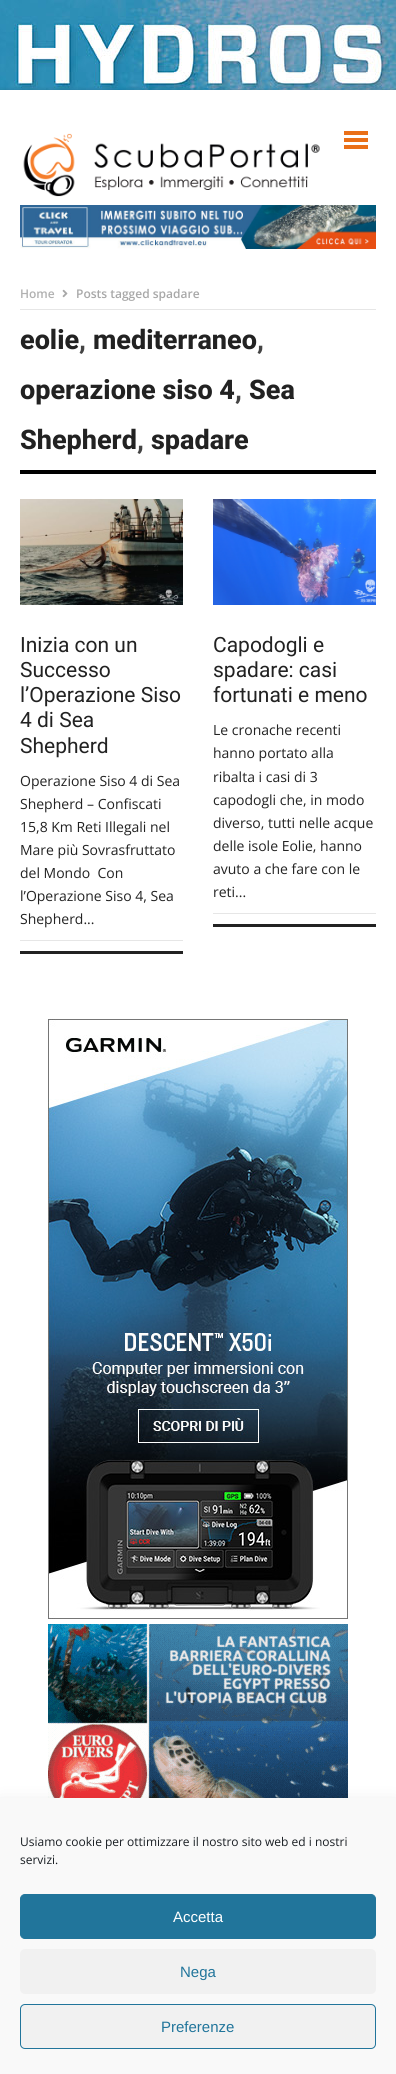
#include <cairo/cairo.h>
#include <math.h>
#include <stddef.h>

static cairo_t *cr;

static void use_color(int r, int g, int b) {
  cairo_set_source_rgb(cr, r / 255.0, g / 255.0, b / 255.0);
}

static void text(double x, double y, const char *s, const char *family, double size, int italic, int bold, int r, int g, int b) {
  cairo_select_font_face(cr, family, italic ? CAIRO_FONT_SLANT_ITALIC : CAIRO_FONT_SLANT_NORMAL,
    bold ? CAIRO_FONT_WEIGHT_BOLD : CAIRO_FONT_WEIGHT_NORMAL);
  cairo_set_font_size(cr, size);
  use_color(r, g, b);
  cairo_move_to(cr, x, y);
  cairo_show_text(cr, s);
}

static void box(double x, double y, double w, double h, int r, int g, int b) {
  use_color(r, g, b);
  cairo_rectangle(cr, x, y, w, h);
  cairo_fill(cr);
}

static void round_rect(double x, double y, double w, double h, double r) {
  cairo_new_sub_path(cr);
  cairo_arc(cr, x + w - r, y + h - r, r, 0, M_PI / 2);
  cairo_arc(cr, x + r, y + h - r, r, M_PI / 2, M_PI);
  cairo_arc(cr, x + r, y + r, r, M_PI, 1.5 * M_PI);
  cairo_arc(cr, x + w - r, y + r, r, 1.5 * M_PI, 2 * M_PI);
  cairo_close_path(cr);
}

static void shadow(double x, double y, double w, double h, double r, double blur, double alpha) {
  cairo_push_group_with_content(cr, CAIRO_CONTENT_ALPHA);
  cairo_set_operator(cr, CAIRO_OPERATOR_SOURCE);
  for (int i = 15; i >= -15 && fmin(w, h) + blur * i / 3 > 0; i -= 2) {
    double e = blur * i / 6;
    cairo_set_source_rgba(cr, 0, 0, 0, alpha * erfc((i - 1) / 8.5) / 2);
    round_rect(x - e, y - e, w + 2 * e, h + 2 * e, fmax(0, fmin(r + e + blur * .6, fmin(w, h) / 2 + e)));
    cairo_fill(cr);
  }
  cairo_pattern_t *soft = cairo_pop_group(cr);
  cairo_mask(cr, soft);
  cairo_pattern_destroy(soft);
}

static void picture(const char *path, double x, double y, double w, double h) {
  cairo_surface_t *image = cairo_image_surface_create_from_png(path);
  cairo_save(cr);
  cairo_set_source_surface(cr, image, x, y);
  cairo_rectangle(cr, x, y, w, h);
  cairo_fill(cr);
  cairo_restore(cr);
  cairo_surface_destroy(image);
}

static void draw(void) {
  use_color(255, 255, 255);
  cairo_paint(cr);
  picture("img_01.png", 0, 0, 396, 90);
  use_color(0, 0, 0);
  shadow(-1, 89, 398, 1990, 0, 1.5, 0.1);
  box(0, 90, 396, 1708, 255, 255, 255);
  picture("img_02.png", 23, 133, 297, 64);
  box(344, 131, 24, 4, 234, 112, 24);
  box(344, 138, 24, 4, 234, 112, 24);
  box(344, 145, 24, 4, 234, 112, 24);
  picture("img_03.png", 20, 205, 356, 44);
  box(20, 309, 356, 1, 230, 230, 230);
  picture("img_04.png", 62, 289, 6, 9);
  box(20, 470, 356, 4, 0, 0, 0);
  picture("img_05.png", 20, 499, 163, 106);
  box(20, 940, 163, 1, 230, 230, 230);
  box(20, 951, 163, 3, 34, 34, 34);
  picture("img_06.png", 213, 499, 163, 106);
  box(213, 913, 163, 1, 230, 230, 230);
  box(213, 924, 163, 3, 34, 34, 34);
  picture("img_07.png", 48, 1019, 300, 600);
  picture("img_08.png", 48, 1624, 300, 174);
  use_color(0, 0, 0);
  shadow(0, 1808, 396, 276, 0, 10, 0.19);
  box(0, 1798, 396, 276, 249, 249, 249);
  use_color(33, 117, 155);
  round_rect(20.5, 1894.5, 355, 44, 4.5);
  cairo_fill_preserve(cr);
  cairo_set_line_width(cr, 1);
  cairo_stroke(cr);
  use_color(241, 241, 241);
  round_rect(20, 1949, 356, 45, 5);
  cairo_fill(cr);
  round_rect(20.5, 2004.5, 355, 44, 4.5);
  cairo_fill_preserve(cr);
  use_color(33, 117, 155);
  cairo_stroke(cr);
  text(20, 298, "Home", "Open Sans SemiBold", 12, 0, 0, 177, 177, 177);
  text(76, 298, "Posts tagged spadare", "Open Sans SemiBold", 12, 0, 0, 168, 168, 168);
  text(20, 349, "eolie", "Roboto ExtraBold", 27, 0, 0, 34, 34, 34);
  text(79, 349, ",", "Roboto ExtraBold", 27, 0, 0, 68, 68, 68);
  text(93, 349, "mediterraneo", "Roboto ExtraBold", 27, 0, 0, 34, 34, 34);
  text(257, 349, ",", "Roboto ExtraBold", 27, 0, 0, 68, 68, 68);
  text(20, 399, "operazione siso 4", "Roboto ExtraBold", 27, 0, 0, 34, 34, 34);
  text(235, 399, ",", "Roboto ExtraBold", 27, 0, 0, 68, 68, 68);
  text(249, 399, "Sea", "Roboto ExtraBold", 27, 0, 0, 34, 34, 34);
  text(20, 449, "Shepherd", "Roboto ExtraBold", 27, 0, 0, 34, 34, 34);
  text(137, 449, ",", "Roboto ExtraBold", 27, 0, 0, 68, 68, 68);
  text(151, 449, "spadare", "Roboto ExtraBold", 27, 0, 0, 34, 34, 34);
  text(20, 652, "Inizia con un", "Roboto", 21, 0, 0, 34, 34, 34);
  text(20, 677, "Successo", "Roboto", 21, 0, 0, 34, 34, 34);
  text(20, 702, "l’Operazione Siso", "Roboto", 21, 0, 0, 34, 34, 34);
  text(20, 727, "4 di Sea", "Roboto", 21, 0, 0, 34, 34, 34);
  text(20, 753, "Shepherd", "Roboto", 21, 0, 0, 34, 34, 34);
  text(20, 786, "Operazione Siso 4 di Sea", "Open Sans", 14, 0, 0, 34, 34, 34);
  text(20, 809, "Shepherd – Confiscati", "Open Sans", 14, 0, 0, 34, 34, 34);
  text(20, 832, "15,8 Km Reti Illegali nel", "Open Sans", 14, 0, 0, 34, 34, 34);
  text(20, 855, "Mare più Sovrasfruttato", "Open Sans", 14, 0, 0, 34, 34, 34);
  text(20, 878, "del Mondo  Con", "Open Sans", 14, 0, 0, 34, 34, 34);
  text(20, 901, "l’Operazione Siso 4, Sea", "Open Sans", 14, 0, 0, 34, 34, 34);
  text(20, 924, "Shepherd...", "Open Sans", 14, 0, 0, 34, 34, 34);
  text(213, 652, "Capodogli e", "Roboto", 21, 0, 0, 34, 34, 34);
  text(213, 677, "spadare: casi", "Roboto", 21, 0, 0, 34, 34, 34);
  text(213, 702, "fortunati e meno", "Roboto", 21, 0, 0, 34, 34, 34);
  text(213, 735, "Le cronache recenti", "Open Sans", 14, 0, 0, 34, 34, 34);
  text(213, 758, "hanno portato alla", "Open Sans", 14, 0, 0, 34, 34, 34);
  text(213, 782, "ribalta i casi di 3", "Open Sans", 14, 0, 0, 34, 34, 34);
  text(213, 805, "capodogli che, in modo", "Open Sans", 14, 0, 0, 34, 34, 34);
  text(213, 828, "diverso, tutti nelle acque", "Open Sans", 14, 0, 0, 34, 34, 34);
  text(213, 851, "delle isole Eolie, hanno", "Open Sans", 14, 0, 0, 34, 34, 34);
  text(213, 874, "avuto a che fare con le", "Open Sans", 14, 0, 0, 34, 34, 34);
  text(213, 897, "reti...", "Open Sans", 14, 0, 0, 34, 34, 34);
  text(20, 1846, "Usiamo cookie per ottimizzare il nostro sito web ed i nostri", "Open Sans", 12, 0, 0, 25, 30, 35);
  text(20, 1864, "servizi.", "Open Sans", 12, 0, 0, 25, 30, 35);
  text(173, 1922, "Accetta", "Liberation Sans", 15, 0, 0, 255, 255, 255);
  text(180, 1977, "Nega", "Liberation Sans", 15, 0, 0, 33, 117, 155);
  text(161, 2032, "Preferenze", "Liberation Sans", 15, 0, 0, 33, 117, 155);
}

int main(void) {
  cairo_surface_t *surface = cairo_image_surface_create(CAIRO_FORMAT_RGB24, 396, 2074);
  cr = cairo_create(surface);
  cairo_font_options_t *options = cairo_font_options_create();
  cairo_font_options_set_hint_metrics(options, CAIRO_HINT_METRICS_OFF);
  cairo_font_options_set_hint_style(options, CAIRO_HINT_STYLE_NONE);
  cairo_set_font_options(cr, options);
  cairo_set_miter_limit(cr, 4);
  draw();
  cairo_surface_write_to_png(surface, "out.png");
  cairo_font_options_destroy(options);
  cairo_destroy(cr);
  cairo_surface_destroy(surface);
  return 0;
}
